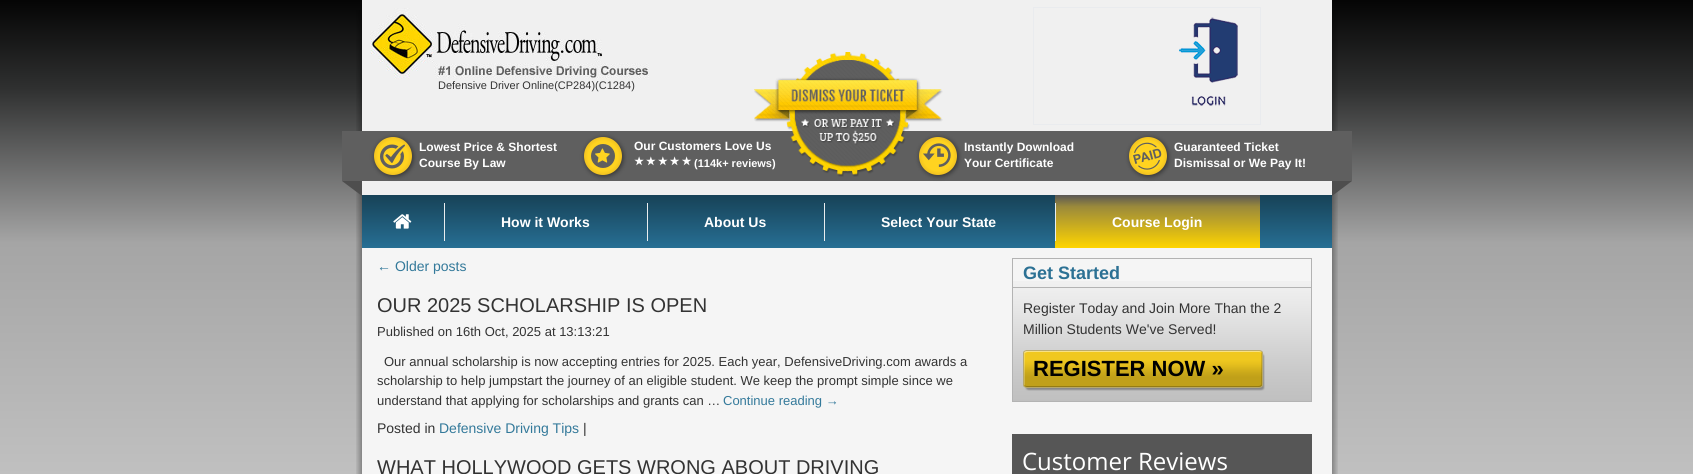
#include <cairo/cairo.h>
#include <math.h>
#include <stddef.h>

static cairo_t *cr;

static void use_color(int r, int g, int b) {
  cairo_set_source_rgb(cr, r / 255.0, g / 255.0, b / 255.0);
}

static void text(double x, double y, const char *s, const char *family, double size, int italic, int bold, int r, int g, int b) {
  cairo_select_font_face(cr, family, italic ? CAIRO_FONT_SLANT_ITALIC : CAIRO_FONT_SLANT_NORMAL,
    bold ? CAIRO_FONT_WEIGHT_BOLD : CAIRO_FONT_WEIGHT_NORMAL);
  cairo_set_font_size(cr, size);
  use_color(r, g, b);
  cairo_move_to(cr, x, y);
  cairo_show_text(cr, s);
}

static void spaced_text(double x, double y, const char *s, double letter, double word) {
  cairo_move_to(cr, x, y);
  while (*s) {
    char ch[5] = {0};
    int n = 0;
    do ch[n++] = *s++; while ((*s & 0xC0) == 0x80);
    cairo_show_text(cr, ch);
    cairo_rel_move_to(cr, letter + word * (*ch == ' '), 0);
  }
}

static void box(double x, double y, double w, double h, int r, int g, int b) {
  use_color(r, g, b);
  cairo_rectangle(cr, x, y, w, h);
  cairo_fill(cr);
}

static void round_rect(double x, double y, double w, double h, double r) {
  cairo_new_sub_path(cr);
  cairo_arc(cr, x + w - r, y + h - r, r, 0, M_PI / 2);
  cairo_arc(cr, x + r, y + h - r, r, M_PI / 2, M_PI);
  cairo_arc(cr, x + r, y + r, r, M_PI, 1.5 * M_PI);
  cairo_arc(cr, x + w - r, y + r, r, 1.5 * M_PI, 2 * M_PI);
  cairo_close_path(cr);
}

static void shadow(double x, double y, double w, double h, double r, double blur, double alpha) {
  cairo_push_group_with_content(cr, CAIRO_CONTENT_ALPHA);
  cairo_set_operator(cr, CAIRO_OPERATOR_SOURCE);
  for (int i = 15; i >= -15 && fmin(w, h) + blur * i / 3 > 0; i -= 2) {
    double e = blur * i / 6;
    cairo_set_source_rgba(cr, 0, 0, 0, alpha * erfc((i - 1) / 8.5) / 2);
    round_rect(x - e, y - e, w + 2 * e, h + 2 * e, fmax(0, fmin(r + e + blur * .6, fmin(w, h) / 2 + e)));
    cairo_fill(cr);
  }
  cairo_pattern_t *soft = cairo_pop_group(cr);
  cairo_mask(cr, soft);
  cairo_pattern_destroy(soft);
}

static void picture(const char *path, double x, double y, double w, double h) {
  cairo_surface_t *image = cairo_image_surface_create_from_png(path);
  cairo_save(cr);
  cairo_set_source_surface(cr, image, x, y);
  cairo_rectangle(cr, x, y, w, h);
  cairo_fill(cr);
  cairo_restore(cr);
  cairo_surface_destroy(image);
}

static void draw(void) {
  cairo_pattern_t *gradient;
  use_color(255, 255, 255);
  cairo_paint(cr);
  gradient = cairo_pattern_create_linear(847, -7, 847, 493);
  cairo_pattern_add_color_stop_rgba(gradient, 0, 0.004, 0.004, 0.004, 1);
  cairo_pattern_add_color_stop_rgba(gradient, 0.19, 0.184, 0.188, 0.188, 1);
  cairo_pattern_add_color_stop_rgba(gradient, 0.5, 0.647, 0.647, 0.647, 1);
  cairo_pattern_add_color_stop_rgba(gradient, 1, 0.761, 0.761, 0.761, 1);
  cairo_set_source(cr, gradient);
  cairo_pattern_destroy(gradient);
  cairo_rectangle(cr, 0, 0, 1693, 474);
  cairo_fill(cr);
  gradient = cairo_pattern_create_linear(355, 121, 362, 121);
  cairo_pattern_add_color_stop_rgba(gradient, 0, 0, 0, 0, 0);
  cairo_pattern_add_color_stop_rgba(gradient, 1, 0, 0, 0, 0.3);
  cairo_set_source(cr, gradient);
  cairo_pattern_destroy(gradient);
  cairo_rectangle(cr, 356, 10, 6, 238);
  cairo_fill(cr);
  box(362, 0, 970, 195, 240, 240, 240);
  picture("img_01.png", 370, 8, 279, 71);
  cairo_rectangle(cr, 1033.5, 7.5, 227, 117);
  use_color(233, 235, 238);
  cairo_set_line_width(cr, 1);
  cairo_stroke(cr);
  picture("img_02.png", 1179, 17, 59, 89);
  box(362, 131, 970, 50, 95, 95, 95);
  use_color(78, 78, 78);
  cairo_new_path(cr);
  cairo_move_to(cr, 362, 161);
  cairo_line_to(cr, 362, 196);
  cairo_line_to(cr, 342, 181);
  cairo_close_path(cr);
  cairo_fill(cr);
  box(342, 131, 20, 50, 95, 95, 95);
  gradient = cairo_pattern_create_linear(1332, 121, 1339, 121);
  cairo_pattern_add_color_stop_rgba(gradient, 0, 0, 0, 0, 0.3);
  cairo_pattern_add_color_stop_rgba(gradient, 1, 0, 0, 0, 0);
  cairo_set_source(cr, gradient);
  cairo_pattern_destroy(gradient);
  cairo_rectangle(cr, 1332, 10, 6, 238);
  cairo_fill(cr);
  use_color(78, 78, 78);
  cairo_new_path(cr);
  cairo_move_to(cr, 1332, 196);
  cairo_line_to(cr, 1332, 161);
  cairo_line_to(cr, 1352, 181);
  cairo_close_path(cr);
  cairo_fill(cr);
  box(1332, 131, 20, 50, 95, 95, 95);
  use_color(0, 0, 0);
  shadow(375, 138, 38, 38, 19, 2.5, 0.5);
  gradient = cairo_pattern_create_radial(393, 156, 0, 393, 156, 27);
  cairo_pattern_add_color_stop_rgba(gradient, 0.55, 1, 0.827, 0.125, 1);
  cairo_pattern_add_color_stop_rgba(gradient, 1, 0.839, 0.627, 0.141, 1);
  cairo_set_source(cr, gradient);
  cairo_pattern_destroy(gradient);
  cairo_arc(cr, 393, 156, 19, 0, 2 * M_PI);
  cairo_fill(cr);
  picture("img_04.png", 380, 144, 25, 25);
  use_color(0, 0, 0);
  shadow(585, 138, 38, 38, 19, 2.5, 0.5);
  gradient = cairo_pattern_create_radial(603, 156, 0, 603, 156, 27);
  cairo_pattern_add_color_stop_rgba(gradient, 0.55, 1, 0.827, 0.125, 1);
  cairo_pattern_add_color_stop_rgba(gradient, 1, 0.839, 0.627, 0.141, 1);
  cairo_set_source(cr, gradient);
  cairo_pattern_destroy(gradient);
  cairo_arc(cr, 603, 156, 19, 0, 2 * M_PI);
  cairo_fill(cr);
  use_color(95, 95, 95);
  cairo_arc(cr, 603, 156, 12, 0, 2 * M_PI);
  cairo_fill(cr);
  picture("img_05.png", 595, 148, 15, 15);
  use_color(0, 0, 0);
  shadow(920, 138, 38, 38, 19, 2.5, 0.5);
  gradient = cairo_pattern_create_radial(938, 156, 0, 938, 156, 27);
  cairo_pattern_add_color_stop_rgba(gradient, 0.55, 1, 0.827, 0.125, 1);
  cairo_pattern_add_color_stop_rgba(gradient, 1, 0.839, 0.627, 0.141, 1);
  cairo_set_source(cr, gradient);
  cairo_pattern_destroy(gradient);
  cairo_arc(cr, 938, 156, 19, 0, 2 * M_PI);
  cairo_fill(cr);
  picture("img_06.png", 923, 143, 28, 24);
  use_color(0, 0, 0);
  shadow(1130, 138, 38, 38, 19, 2.5, 0.5);
  gradient = cairo_pattern_create_radial(1148, 156, 0, 1148, 156, 27);
  cairo_pattern_add_color_stop_rgba(gradient, 0.55, 1, 0.827, 0.125, 1);
  cairo_pattern_add_color_stop_rgba(gradient, 1, 0.839, 0.627, 0.141, 1);
  cairo_set_source(cr, gradient);
  cairo_pattern_destroy(gradient);
  cairo_arc(cr, 1148, 156, 19, 0, 2 * M_PI);
  cairo_fill(cr);
  picture("img_07.png", 1133, 142, 29, 28);
  gradient = cairo_pattern_create_linear(847, 195, 847, 248);
  cairo_pattern_add_color_stop_rgba(gradient, 0, 0.09, 0.259, 0.341, 1);
  cairo_pattern_add_color_stop_rgba(gradient, 1, 0.153, 0.435, 0.58, 1);
  cairo_set_source(cr, gradient);
  cairo_pattern_destroy(gradient);
  cairo_rectangle(cr, 362, 195, 970, 53);
  cairo_fill(cr);
  picture("img_08.png", 393, 214, 19, 15);
  box(444, 203, 1, 38, 233, 237, 239);
  box(647, 203, 1, 38, 233, 237, 239);
  box(824, 203, 1, 38, 233, 237, 239);
  gradient = cairo_pattern_create_linear(1158, 195, 1158, 248);
  cairo_pattern_add_color_stop_rgba(gradient, 0, 0.349, 0.341, 0.333, 1);
  cairo_pattern_add_color_stop_rgba(gradient, 0.22, 0.608, 0.541, 0.231, 1);
  cairo_pattern_add_color_stop_rgba(gradient, 1, 1, 0.835, 0, 1);
  cairo_set_source(cr, gradient);
  cairo_pattern_destroy(gradient);
  cairo_rectangle(cr, 1055, 195, 205, 53);
  cairo_fill(cr);
  box(1055, 203, 1, 38, 233, 237, 239);
  gradient = cairo_pattern_create_linear(355, 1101, 362, 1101);
  cairo_pattern_add_color_stop_rgba(gradient, 0, 0, 0, 0, 0);
  cairo_pattern_add_color_stop_rgba(gradient, 1, 0, 0, 0, 0.3);
  cairo_set_source(cr, gradient);
  cairo_pattern_destroy(gradient);
  cairo_rectangle(cr, 356, 248, 6, 226);
  cairo_fill(cr);
  box(362, 248, 970, 226, 245, 245, 245);
  picture("img_09.png", 1013, 281, 298, 120);
  cairo_rectangle(cr, 1012.5, 258.5, 299, 143);
  use_color(179, 179, 179);
  cairo_stroke(cr);
  box(1013, 287, 298, 1, 179, 179, 179);
  picture("img_10.png", 1023, 350, 242, 41);
  box(1012, 434, 300, 40, 86, 86, 86);
  gradient = cairo_pattern_create_linear(1332, 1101, 1339, 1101);
  cairo_pattern_add_color_stop_rgba(gradient, 0, 0, 0, 0, 0.3);
  cairo_pattern_add_color_stop_rgba(gradient, 1, 0, 0, 0, 0);
  cairo_set_source(cr, gradient);
  cairo_pattern_destroy(gradient);
  cairo_rectangle(cr, 1332, 248, 6, 226);
  cairo_fill(cr);
  text(438, 89, "Defensive Driver Online(CP284)(C1284)", "Liberation Sans", 11, 0, 0, 51, 51, 51);
  text(419, 151, "Lowest Price & Shortest", "Liberation Sans", 12, 0, 1, 255, 255, 255);
  text(419, 167, "Course By Law", "Liberation Sans", 12, 0, 1, 255, 255, 255);
  text(634, 150, "Our Customers Love Us", "Liberation Sans", 12, 0, 1, 255, 255, 255);
  cairo_select_font_face(cr, "DejaVu Sans", CAIRO_FONT_SLANT_NORMAL, CAIRO_FONT_WEIGHT_BOLD);
  cairo_set_font_size(cr, 11);
  spaced_text(634, 165, "★★★★★", 2, 0);
  text(694, 167, "(114k+ reviews)", "Liberation Sans", 11, 0, 1, 255, 255, 255);
  picture("img_03.png", 754, 52, 189, 125);
  text(964, 151, "Instantly Download", "Liberation Sans", 12, 0, 1, 255, 255, 255);
  text(964, 167, "Your Certificate", "Liberation Sans", 12, 0, 1, 255, 255, 255);
  text(1174, 151, "Guaranteed Ticket", "Liberation Sans", 12, 0, 1, 255, 255, 255);
  text(1174, 167, "Dismissal or We Pay It!", "Liberation Sans", 12, 0, 1, 255, 255, 255);
  text(501, 227, "How it Works", "Liberation Sans", 14, 0, 1, 255, 255, 255);
  text(704, 227, "About Us", "Liberation Sans", 14, 0, 1, 255, 255, 255);
  text(881, 227, "Select Your State", "Liberation Sans", 14, 0, 1, 255, 255, 255);
  text(1112, 227, "Course Login", "Liberation Sans", 14, 0, 1, 255, 255, 255);
  text(377, 271, "← Older posts", "Liberation Sans", 14, 0, 0, 51, 121, 154);
  text(377, 312, "OUR 2025 SCHOLARSHIP IS OPEN", "Liberation Sans", 20, 0, 0, 51, 51, 51);
  text(377, 336, "Published on 16th Oct, 2025 at 13:13:21", "Liberation Sans", 13, 0, 0, 51, 51, 51);
  text(384, 366, "Our annual scholarship is now accepting entries for 2025. Each year, DefensiveDriving.com awards a", "Liberation Sans", 13, 0, 0, 51, 51, 51);
  text(377, 385, "scholarship to help jumpstart the journey of an eligible student. We keep the prompt simple since we", "Liberation Sans", 13, 0, 0, 51, 51, 51);
  text(377, 405, "understand that applying for scholarships and grants can …", "Liberation Sans", 13, 0, 0, 51, 51, 51);
  text(723, 405, "Continue reading →", "Liberation Sans", 13, 0, 0, 51, 121, 154);
  text(377, 433, "Posted in", "Liberation Sans", 14, 0, 0, 51, 51, 51);
  text(439, 433, "Defensive Driving Tips", "Liberation Sans", 14, 0, 0, 51, 121, 154);
  text(583, 433, "|", "Liberation Sans", 14, 0, 0, 51, 51, 51);
  text(377, 474, "WHAT HOLLYWOOD GETS WRONG ABOUT DRIVING", "Liberation Sans", 20, 0, 0, 51, 51, 51);
  text(1023, 279, "Get Started", "Liberation Sans", 18, 0, 1, 44, 113, 148);
  text(1023, 313, "Register Today and Join More Than the 2", "Liberation Sans", 14, 0, 0, 51, 51, 51);
  text(1023, 334, "Million Students We've Served!", "Liberation Sans", 14, 0, 0, 51, 51, 51);
  text(1033, 376, "REGISTER NOW »", "Liberation Sans", 22, 0, 1, 0, 0, 0);
  text(1022, 470, "Customer Reviews", "Open Sans", 24, 0, 0, 255, 255, 255);
}

int main(void) {
  cairo_surface_t *surface = cairo_image_surface_create(CAIRO_FORMAT_RGB24, 1693, 474);
  cr = cairo_create(surface);
  cairo_font_options_t *options = cairo_font_options_create();
  cairo_font_options_set_hint_metrics(options, CAIRO_HINT_METRICS_OFF);
  cairo_font_options_set_hint_style(options, CAIRO_HINT_STYLE_NONE);
  cairo_set_font_options(cr, options);
  cairo_set_miter_limit(cr, 4);
  draw();
  cairo_surface_write_to_png(surface, "out.png");
  cairo_font_options_destroy(options);
  cairo_destroy(cr);
  cairo_surface_destroy(surface);
  return 0;
}
